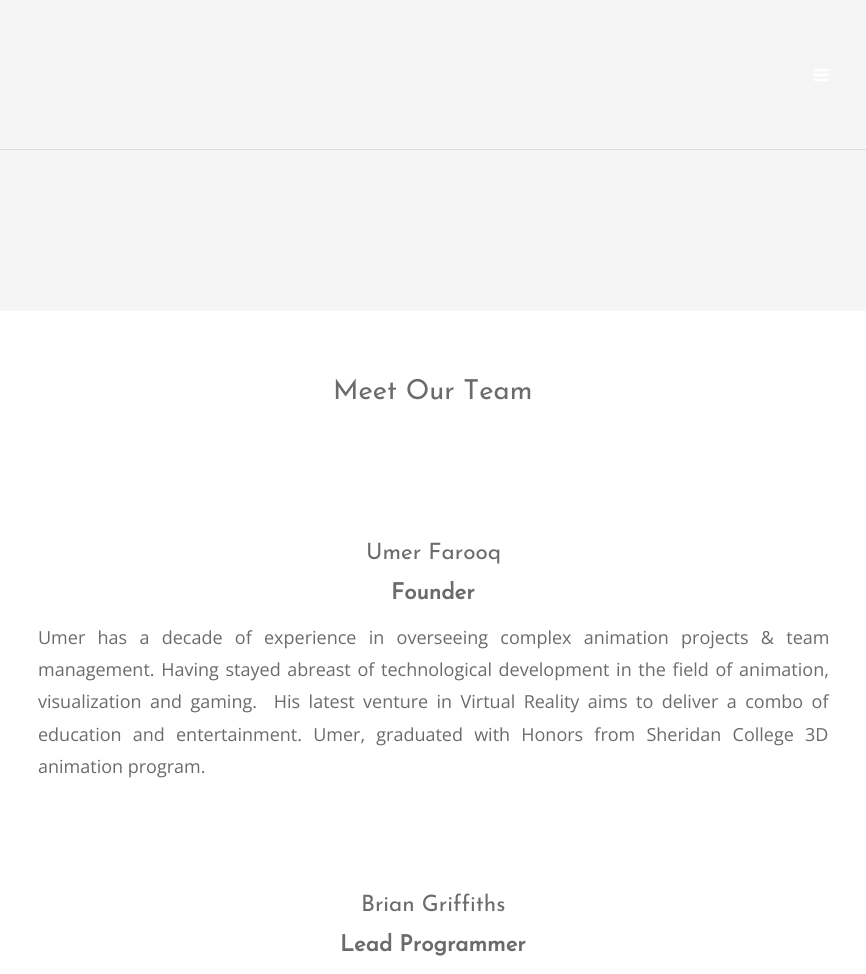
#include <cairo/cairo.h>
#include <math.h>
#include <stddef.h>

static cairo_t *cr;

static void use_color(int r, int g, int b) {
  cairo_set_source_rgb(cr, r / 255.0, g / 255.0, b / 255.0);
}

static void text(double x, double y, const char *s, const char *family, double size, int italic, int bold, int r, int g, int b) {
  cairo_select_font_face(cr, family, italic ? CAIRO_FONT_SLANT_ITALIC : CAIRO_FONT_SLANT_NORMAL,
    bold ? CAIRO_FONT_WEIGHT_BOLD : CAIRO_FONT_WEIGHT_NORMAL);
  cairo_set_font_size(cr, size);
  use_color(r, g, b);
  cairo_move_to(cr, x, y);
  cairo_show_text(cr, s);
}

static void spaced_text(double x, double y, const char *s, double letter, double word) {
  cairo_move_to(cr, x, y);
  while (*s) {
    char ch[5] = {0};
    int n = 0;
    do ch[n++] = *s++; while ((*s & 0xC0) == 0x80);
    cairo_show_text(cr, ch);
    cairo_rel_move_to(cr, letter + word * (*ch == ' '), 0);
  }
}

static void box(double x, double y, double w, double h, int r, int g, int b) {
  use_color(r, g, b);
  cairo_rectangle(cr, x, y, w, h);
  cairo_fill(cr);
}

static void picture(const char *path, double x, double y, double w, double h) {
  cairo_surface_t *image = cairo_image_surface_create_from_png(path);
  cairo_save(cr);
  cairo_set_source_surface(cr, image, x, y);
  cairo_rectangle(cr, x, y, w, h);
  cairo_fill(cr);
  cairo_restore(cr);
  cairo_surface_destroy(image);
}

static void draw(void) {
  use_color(255, 255, 255);
  cairo_paint(cr);
  box(0, 0, 866, 311, 245, 245, 245);
  box(0, 149, 866, 1, 221, 221, 221);
  picture("img_01.png", 814, 69, 15, 12);
  text(333, 399, "Meet Our Team", "Josefin Sans Thin", 27.5, 0, 0, 107, 107, 107);
  text(366, 559, "Umer Farooq", "Josefin Sans Thin", 22.5, 0, 0, 107, 107, 107);
  text(391, 599, "Founder", "Josefin Sans", 22.5, 0, 1, 107, 107, 107);
  cairo_select_font_face(cr, "Open Sans", CAIRO_FONT_SLANT_NORMAL, CAIRO_FONT_WEIGHT_NORMAL);
  cairo_set_font_size(cr, 18);
  spaced_text(38, 644, "Umer has a decade of experience in overseeing complex animation projects & team", 0, 7.6);
  spaced_text(38, 676, "management. Having stayed abreast of technological development in the field of animation,", 0, 2);
  spaced_text(38, 708, "visualization and gaming.  His latest venture in Virtual Reality aims to deliver a combo of", 0, 3.75);
  spaced_text(38, 741, "education and entertainment. Umer, graduated with Honors from Sheridan College 3D", 0, 6.5);
  text(38, 773, "animation program.", "Open Sans", 18, 0, 0, 107, 107, 107);
  text(361, 911, "Brian Griffiths", "Josefin Sans Thin", 22.5, 0, 0, 107, 107, 107);
  text(340, 951, "Lead Programmer", "Josefin Sans", 22.5, 0, 1, 107, 107, 107);
}

int main(void) {
  cairo_surface_t *surface = cairo_image_surface_create(CAIRO_FORMAT_RGB24, 866, 974);
  cr = cairo_create(surface);
  cairo_font_options_t *options = cairo_font_options_create();
  cairo_font_options_set_hint_metrics(options, CAIRO_HINT_METRICS_OFF);
  cairo_font_options_set_hint_style(options, CAIRO_HINT_STYLE_NONE);
  cairo_set_font_options(cr, options);
  cairo_set_miter_limit(cr, 4);
  draw();
  cairo_surface_write_to_png(surface, "out.png");
  cairo_font_options_destroy(options);
  cairo_destroy(cr);
  cairo_surface_destroy(surface);
  return 0;
}
